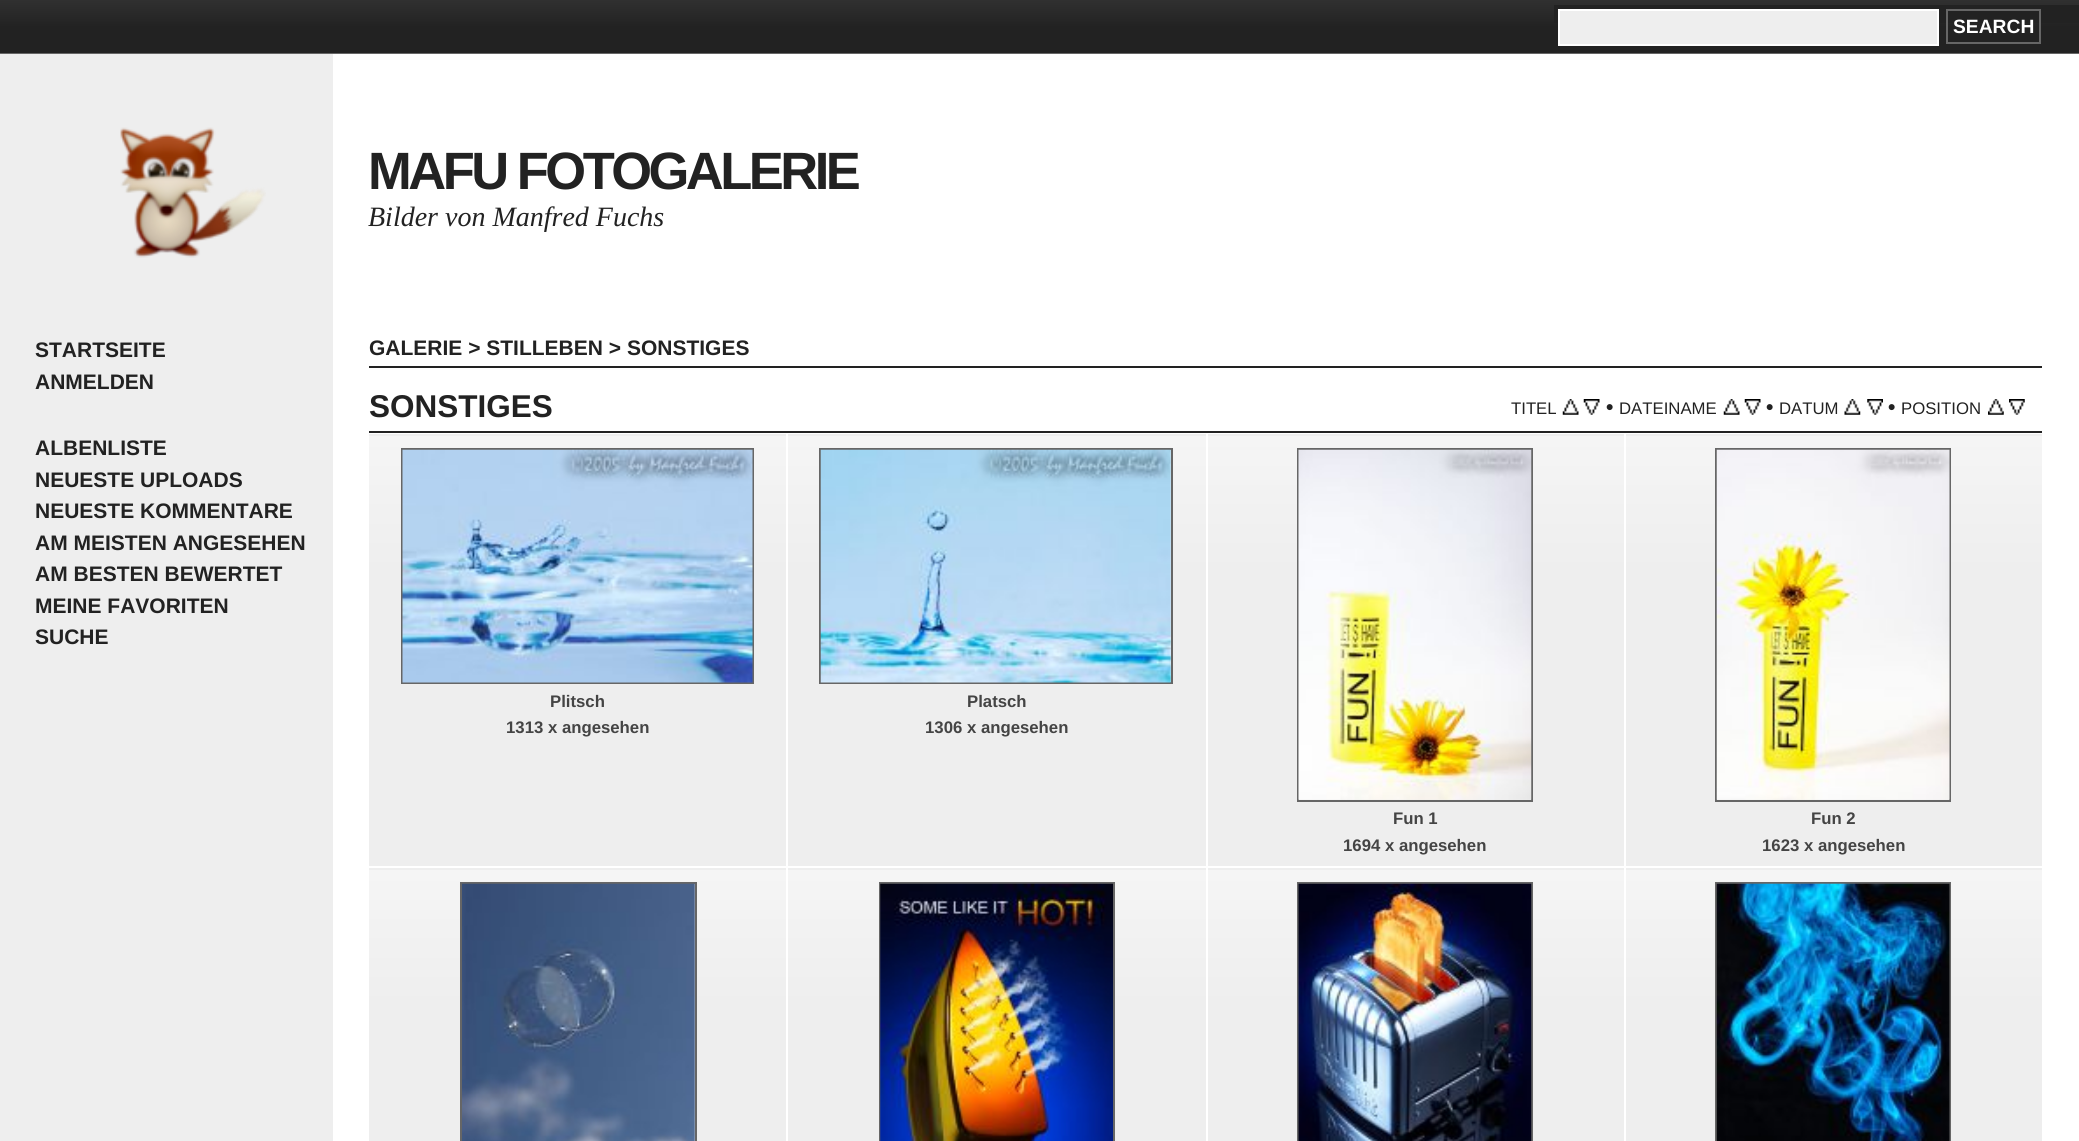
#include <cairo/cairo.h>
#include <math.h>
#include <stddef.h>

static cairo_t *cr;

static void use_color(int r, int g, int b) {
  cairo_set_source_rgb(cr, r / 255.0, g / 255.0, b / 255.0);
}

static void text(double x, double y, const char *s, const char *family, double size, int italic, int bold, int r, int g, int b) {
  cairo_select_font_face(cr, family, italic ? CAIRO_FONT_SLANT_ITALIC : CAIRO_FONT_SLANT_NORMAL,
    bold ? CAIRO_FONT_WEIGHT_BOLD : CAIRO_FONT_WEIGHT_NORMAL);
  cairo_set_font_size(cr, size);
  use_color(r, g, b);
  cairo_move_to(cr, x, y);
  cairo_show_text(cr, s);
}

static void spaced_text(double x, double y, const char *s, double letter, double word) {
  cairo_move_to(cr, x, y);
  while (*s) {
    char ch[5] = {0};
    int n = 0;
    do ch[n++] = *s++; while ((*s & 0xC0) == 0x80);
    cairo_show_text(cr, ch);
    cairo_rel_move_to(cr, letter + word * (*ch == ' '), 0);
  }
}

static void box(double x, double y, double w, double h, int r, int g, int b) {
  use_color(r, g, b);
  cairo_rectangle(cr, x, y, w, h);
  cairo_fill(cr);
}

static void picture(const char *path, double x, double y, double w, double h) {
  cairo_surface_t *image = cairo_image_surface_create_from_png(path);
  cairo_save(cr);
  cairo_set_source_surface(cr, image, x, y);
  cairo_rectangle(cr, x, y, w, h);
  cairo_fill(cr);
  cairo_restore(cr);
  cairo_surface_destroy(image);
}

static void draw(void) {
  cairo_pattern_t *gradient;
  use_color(255, 255, 255);
  cairo_paint(cr);
  gradient = cairo_pattern_create_linear(1040, 0, 1040, 53);
  cairo_pattern_add_color_stop_rgba(gradient, 0, 0.188, 0.188, 0.188, 1);
  cairo_pattern_add_color_stop_rgba(gradient, 0.52, 0.133, 0.133, 0.133, 1);
  cairo_set_source(cr, gradient);
  cairo_pattern_destroy(gradient);
  cairo_rectangle(cr, 0, 0, 2079, 53);
  cairo_fill(cr);
  box(0, 53, 2079, 1, 102, 102, 102);
  box(1554, 5, 525, 18, 34, 34, 34);
  use_color(238, 238, 238);
  cairo_rectangle(cr, 1559, 10, 379, 35);
  cairo_fill_preserve(cr);
  use_color(255, 255, 255);
  cairo_stroke(cr);
  cairo_rectangle(cr, 1947, 10, 93, 33);
  use_color(102, 102, 102);
  cairo_stroke(cr);
  box(0, 54, 333, 1087, 238, 238, 238);
  picture("img_01.png", 120, 127, 146, 131);
  box(369, 366, 1673, 2, 34, 34, 34);
  box(369, 431, 1673, 2, 34, 34, 34);
  picture("img_02.png", 1562, 399, 17, 16);
  picture("img_03.png", 1583, 399, 17, 16);
  picture("img_02.png", 1723, 399, 17, 16);
  picture("img_04.png", 1744, 399, 17, 16);
  picture("img_05.png", 1844, 399, 17, 16);
  picture("img_06.png", 1867, 399, 16, 16);
  picture("img_07.png", 1988, 399, 16, 16);
  picture("img_08.png", 2009, 399, 16, 16);
  box(369, 434, 417, 2, 238, 238, 238);
  gradient = cairo_pattern_create_linear(369, 866, 369, 436);
  cairo_pattern_add_color_stop_rgba(gradient, 0.68, 0.933, 0.933, 0.933, 1);
  cairo_pattern_add_color_stop_rgba(gradient, 1, 0.961, 0.961, 0.961, 1);
  cairo_set_source(cr, gradient);
  cairo_pattern_destroy(gradient);
  cairo_rectangle(cr, 369, 436, 417, 430);
  cairo_fill(cr);
  cairo_rectangle(cr, 402, 449, 351, 234);
  use_color(102, 102, 102);
  cairo_stroke(cr);
  picture("img_09.png", 402, 449, 351, 234);
  box(788, 434, 418, 2, 238, 238, 238);
  gradient = cairo_pattern_create_linear(788, 866, 788, 436);
  cairo_pattern_add_color_stop_rgba(gradient, 0.68, 0.933, 0.933, 0.933, 1);
  cairo_pattern_add_color_stop_rgba(gradient, 1, 0.961, 0.961, 0.961, 1);
  cairo_set_source(cr, gradient);
  cairo_pattern_destroy(gradient);
  cairo_rectangle(cr, 788, 436, 418, 430);
  cairo_fill(cr);
  cairo_rectangle(cr, 820, 449, 352, 234);
  use_color(102, 102, 102);
  cairo_stroke(cr);
  picture("img_10.png", 820, 449, 351, 234);
  box(1208, 434, 416, 2, 238, 238, 238);
  gradient = cairo_pattern_create_linear(1208, 866, 1208, 436);
  cairo_pattern_add_color_stop_rgba(gradient, 0.68, 0.933, 0.933, 0.933, 1);
  cairo_pattern_add_color_stop_rgba(gradient, 1, 0.961, 0.961, 0.961, 1);
  cairo_set_source(cr, gradient);
  cairo_pattern_destroy(gradient);
  cairo_rectangle(cr, 1208, 436, 416, 430);
  cairo_fill(cr);
  cairo_rectangle(cr, 1298, 449, 234, 352);
  use_color(102, 102, 102);
  cairo_stroke(cr);
  picture("img_11.png", 1298, 449, 234, 351);
  box(1626, 434, 416, 2, 238, 238, 238);
  gradient = cairo_pattern_create_linear(1626, 866, 1626, 436);
  cairo_pattern_add_color_stop_rgba(gradient, 0.68, 0.933, 0.933, 0.933, 1);
  cairo_pattern_add_color_stop_rgba(gradient, 1, 0.961, 0.961, 0.961, 1);
  cairo_set_source(cr, gradient);
  cairo_pattern_destroy(gradient);
  cairo_rectangle(cr, 1626, 436, 416, 430);
  cairo_fill(cr);
  cairo_rectangle(cr, 1716, 449, 234, 352);
  use_color(102, 102, 102);
  cairo_stroke(cr);
  picture("img_12.png", 1716, 449, 234, 351);
  box(369, 868, 417, 2, 238, 238, 238);
  gradient = cairo_pattern_create_linear(369, 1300, 369, 870);
  cairo_pattern_add_color_stop_rgba(gradient, 0.68, 0.933, 0.933, 0.933, 1);
  cairo_pattern_add_color_stop_rgba(gradient, 1, 0.961, 0.961, 0.961, 1);
  cairo_set_source(cr, gradient);
  cairo_pattern_destroy(gradient);
  cairo_rectangle(cr, 369, 870, 417, 271);
  cairo_fill(cr);
  cairo_rectangle(cr, 461, 883, 235, 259);
  use_color(102, 102, 102);
  cairo_stroke(cr);
  picture("img_13.png", 462, 883, 233, 258);
  box(788, 868, 418, 2, 238, 238, 238);
  gradient = cairo_pattern_create_linear(788, 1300, 788, 870);
  cairo_pattern_add_color_stop_rgba(gradient, 0.68, 0.933, 0.933, 0.933, 1);
  cairo_pattern_add_color_stop_rgba(gradient, 1, 0.961, 0.961, 0.961, 1);
  cairo_set_source(cr, gradient);
  cairo_pattern_destroy(gradient);
  cairo_rectangle(cr, 788, 870, 418, 271);
  cairo_fill(cr);
  cairo_rectangle(cr, 880, 883, 234, 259);
  use_color(102, 102, 102);
  cairo_stroke(cr);
  picture("img_14.png", 880, 883, 233, 258);
  box(1208, 868, 416, 2, 238, 238, 238);
  gradient = cairo_pattern_create_linear(1208, 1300, 1208, 870);
  cairo_pattern_add_color_stop_rgba(gradient, 0.68, 0.933, 0.933, 0.933, 1);
  cairo_pattern_add_color_stop_rgba(gradient, 1, 0.961, 0.961, 0.961, 1);
  cairo_set_source(cr, gradient);
  cairo_pattern_destroy(gradient);
  cairo_rectangle(cr, 1208, 870, 416, 271);
  cairo_fill(cr);
  cairo_rectangle(cr, 1298, 883, 234, 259);
  use_color(102, 102, 102);
  cairo_stroke(cr);
  picture("img_15.png", 1298, 883, 234, 258);
  box(1626, 868, 416, 2, 238, 238, 238);
  gradient = cairo_pattern_create_linear(1626, 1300, 1626, 870);
  cairo_pattern_add_color_stop_rgba(gradient, 0.68, 0.933, 0.933, 0.933, 1);
  cairo_pattern_add_color_stop_rgba(gradient, 1, 0.961, 0.961, 0.961, 1);
  cairo_set_source(cr, gradient);
  cairo_pattern_destroy(gradient);
  cairo_rectangle(cr, 1626, 870, 416, 271);
  cairo_fill(cr);
  cairo_rectangle(cr, 1716, 883, 234, 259);
  use_color(102, 102, 102);
  cairo_stroke(cr);
  picture("img_16.png", 1716, 883, 234, 258);
  text(1953, 33, "SEARCH", "Liberation Sans", 19.25, 0, 1, 255, 255, 255);
  text(35, 357, "STARTSEITE", "Liberation Sans", 21, 0, 1, 34, 34, 34);
  text(35, 389, "ANMELDEN", "Liberation Sans", 21, 0, 1, 34, 34, 34);
  text(35, 455, "ALBENLISTE", "Liberation Sans", 21, 0, 1, 34, 34, 34);
  text(35, 487, "NEUESTE UPLOADS", "Liberation Sans", 21, 0, 1, 34, 34, 34);
  text(35, 518, "NEUESTE KOMMENTARE", "Liberation Sans", 21, 0, 1, 34, 34, 34);
  text(35, 550, "AM MEISTEN ANGESEHEN", "Liberation Sans", 21, 0, 1, 34, 34, 34);
  text(35, 581, "AM BESTEN BEWERTET", "Liberation Sans", 21, 0, 1, 34, 34, 34);
  text(35, 613, "MEINE FAVORITEN", "Liberation Sans", 21, 0, 1, 34, 34, 34);
  text(35, 644, "SUCHE", "Liberation Sans", 21, 0, 1, 34, 34, 34);
  cairo_set_font_size(cr, 52.5);
  spaced_text(368, 189, "MAFU FOTOGALERIE", -3.5, 0);
  text(368, 226, "Bilder von Manfred Fuchs", "Liberation Serif", 28, 1, 0, 34, 34, 34);
  text(369, 355, "GALERIE > STILLEBEN > SONSTIGES", "Liberation Sans", 21, 0, 1, 34, 34, 34);
  text(369, 417, "SONSTIGES", "Liberation Sans", 31.5, 0, 1, 34, 34, 34);
  text(1511, 414, "TITEL", "Liberation Sans", 16.75, 0, 0, 34, 34, 34);
  text(1606, 414, "•", "Liberation Sans", 21, 0, 1, 34, 34, 34);
  text(1619, 414, "DATEINAME", "Liberation Sans", 16.75, 0, 0, 34, 34, 34);
  text(1766, 414, "•", "Liberation Sans", 21, 0, 1, 34, 34, 34);
  text(1779, 414, "DATUM", "Liberation Sans", 16.75, 0, 0, 34, 34, 34);
  text(1888, 414, "•", "Liberation Sans", 21, 0, 1, 34, 34, 34);
  text(1901, 414, "POSITION", "Liberation Sans", 16.75, 0, 0, 34, 34, 34);
  text(550, 707, "Plitsch", "Liberation Sans", 16.75, 0, 1, 68, 68, 68);
  text(506, 733, "1313 x angesehen", "Liberation Sans", 16.75, 0, 1, 68, 68, 68);
  text(967, 707, "Platsch", "Liberation Sans", 16.75, 0, 1, 68, 68, 68);
  text(925, 733, "1306 x angesehen", "Liberation Sans", 16.75, 0, 1, 68, 68, 68);
  text(1393, 824, "Fun 1", "Liberation Sans", 16.75, 0, 1, 68, 68, 68);
  text(1343, 851, "1694 x angesehen", "Liberation Sans", 16.75, 0, 1, 68, 68, 68);
  text(1811, 824, "Fun 2", "Liberation Sans", 16.75, 0, 1, 68, 68, 68);
  text(1762, 851, "1623 x angesehen", "Liberation Sans", 16.75, 0, 1, 68, 68, 68);
}

int main(void) {
  cairo_surface_t *surface = cairo_image_surface_create(CAIRO_FORMAT_RGB24, 2079, 1141);
  cr = cairo_create(surface);
  cairo_font_options_t *options = cairo_font_options_create();
  cairo_font_options_set_hint_metrics(options, CAIRO_HINT_METRICS_OFF);
  cairo_font_options_set_hint_style(options, CAIRO_HINT_STYLE_NONE);
  cairo_set_font_options(cr, options);
  cairo_set_miter_limit(cr, 4);
  draw();
  cairo_surface_write_to_png(surface, "out.png");
  cairo_font_options_destroy(options);
  cairo_destroy(cr);
  cairo_surface_destroy(surface);
  return 0;
}
